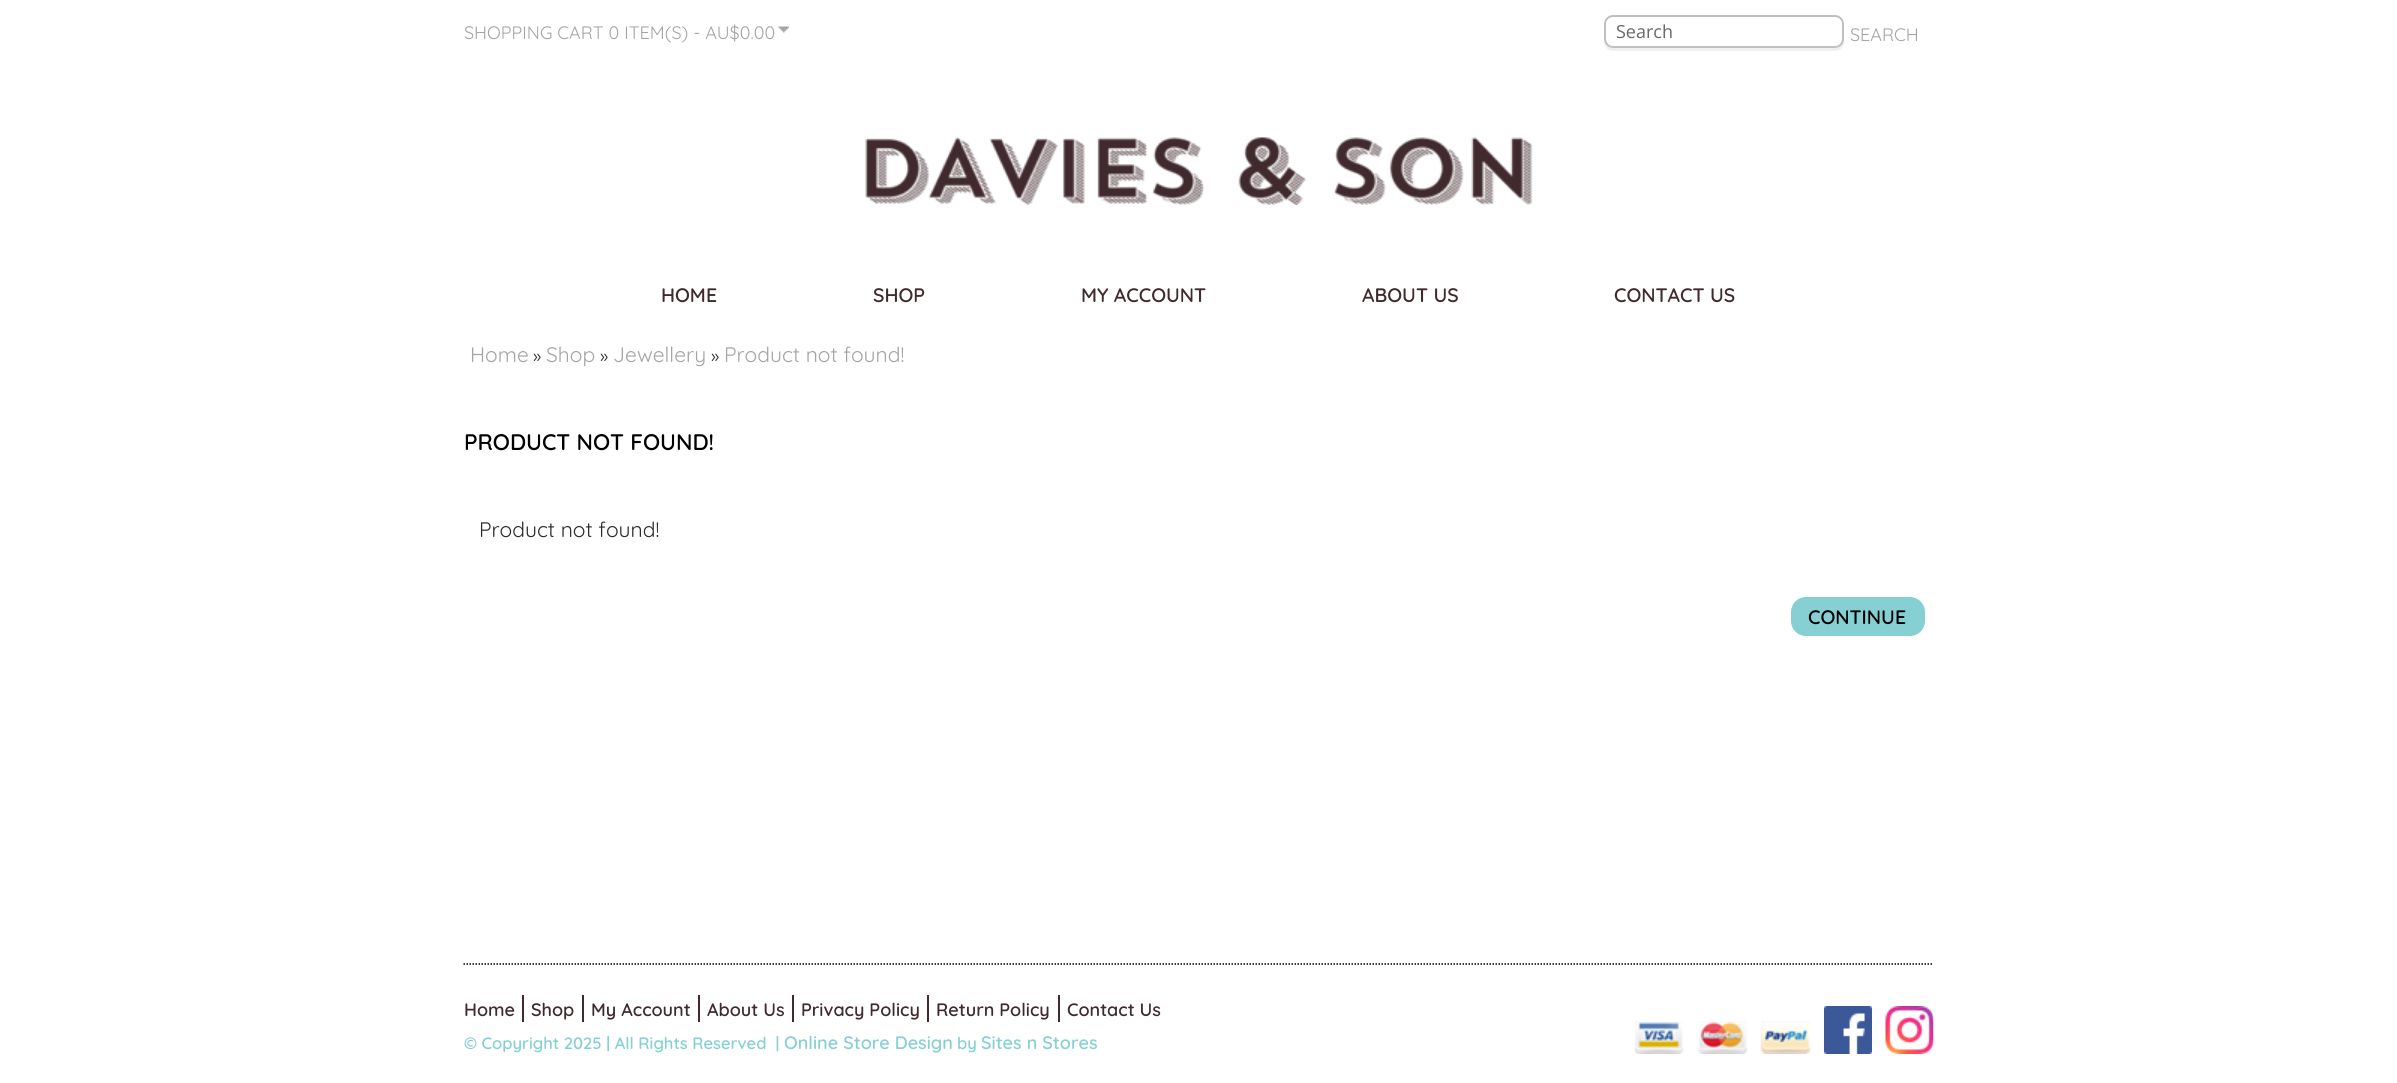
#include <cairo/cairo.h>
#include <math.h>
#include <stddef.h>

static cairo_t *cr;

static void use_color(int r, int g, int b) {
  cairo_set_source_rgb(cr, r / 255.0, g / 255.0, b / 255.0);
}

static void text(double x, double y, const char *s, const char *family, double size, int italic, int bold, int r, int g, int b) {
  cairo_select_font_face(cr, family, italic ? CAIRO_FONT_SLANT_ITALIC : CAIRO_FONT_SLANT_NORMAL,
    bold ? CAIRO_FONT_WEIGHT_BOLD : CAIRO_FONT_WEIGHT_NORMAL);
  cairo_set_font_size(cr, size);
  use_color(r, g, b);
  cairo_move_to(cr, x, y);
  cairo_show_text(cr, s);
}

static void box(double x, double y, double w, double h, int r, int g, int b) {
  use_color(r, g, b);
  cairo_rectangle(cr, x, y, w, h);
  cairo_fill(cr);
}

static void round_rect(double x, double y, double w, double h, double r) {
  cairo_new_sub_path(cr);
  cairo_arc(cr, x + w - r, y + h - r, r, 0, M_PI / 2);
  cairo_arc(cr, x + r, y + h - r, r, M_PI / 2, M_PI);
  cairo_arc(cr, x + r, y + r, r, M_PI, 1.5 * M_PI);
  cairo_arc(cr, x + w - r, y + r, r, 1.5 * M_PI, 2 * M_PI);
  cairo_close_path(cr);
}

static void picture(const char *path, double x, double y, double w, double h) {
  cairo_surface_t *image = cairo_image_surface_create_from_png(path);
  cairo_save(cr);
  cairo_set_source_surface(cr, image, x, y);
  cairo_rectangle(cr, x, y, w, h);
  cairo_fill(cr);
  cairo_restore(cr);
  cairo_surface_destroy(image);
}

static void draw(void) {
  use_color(255, 255, 255);
  cairo_paint(cr);
  picture("img_01.png", 778, 26, 11, 7);
  use_color(240, 240, 240);
  cairo_new_path(cr);
  cairo_move_to(cr, 1604, 42);
  cairo_curve_to(cr, 1604, 47, 1608, 51, 1613, 51);
  cairo_line_to(cr, 1835, 51);
  cairo_curve_to(cr, 1840, 51, 1844, 47, 1844, 42);
  cairo_line_to(cr, 1844, 27);
  cairo_line_to(cr, 1844, 24);
  cairo_line_to(cr, 1844, 39);
  cairo_curve_to(cr, 1844, 44, 1839, 48, 1834, 48);
  cairo_line_to(cr, 1612, 48);
  cairo_curve_to(cr, 1609, 48, 1605, 45, 1604, 42);
  cairo_close_path(cr);
  cairo_fill(cr);
  use_color(255, 255, 255);
  round_rect(1605, 16, 238, 31, 8);
  cairo_fill_preserve(cr);
  use_color(192, 192, 192);
  cairo_stroke(cr);
  picture("img_02.png", 865, 137, 668, 68);
  use_color(134, 208, 211);
  round_rect(1791, 597, 134, 39, 15);
  cairo_fill(cr);
  cairo_new_path(cr);
  cairo_move_to(cr, 463.5, 964);
  cairo_line_to(cr, 1933.5, 964);
  use_color(0, 0, 0);
  cairo_set_line_width(cr, 1.5);
  cairo_set_dash(cr, (double[]){1.5, 1.5}, 2, 0);
  cairo_stroke(cr);
  box(522, 995, 2, 27, 64, 42, 46);
  box(582, 995, 2, 27, 64, 42, 46);
  box(698, 995, 2, 27, 64, 42, 46);
  box(792, 995, 2, 27, 64, 42, 46);
  box(927, 995, 2, 27, 64, 42, 46);
  box(1058, 995, 2, 27, 64, 42, 46);
  picture("img_03.png", 1635, 1021, 176, 33);
  picture("img_04.png", 1824, 1006, 48, 48);
  picture("img_05.png", 1885, 1006, 49, 48);
  text(464, 39, "SHOPPING CART 0 ITEM(S) - AU$0.00", "Quicksand", 18, 0, 0, 164, 164, 164);
  text(1616, 38, "Search", "Open Sans", 18, 0, 0, 105, 105, 105);
  text(1850, 41, "SEARCH", "Quicksand", 18, 0, 0, 164, 164, 164);
  text(661, 302, "HOME", "Quicksand SemiBold", 19.5, 0, 0, 64, 42, 46);
  text(873, 302, "SHOP", "Quicksand SemiBold", 19.5, 0, 0, 64, 42, 46);
  text(1081, 302, "MY ACCOUNT", "Quicksand SemiBold", 19.5, 0, 0, 64, 42, 46);
  text(1362, 302, "ABOUT US", "Quicksand SemiBold", 19.5, 0, 0, 64, 42, 46);
  text(1614, 302, "CONTACT US", "Quicksand SemiBold", 19.5, 0, 0, 64, 42, 46);
  text(470, 362, "Home", "Quicksand", 21, 0, 0, 164, 164, 164);
  text(533, 362, "»", "Quicksand", 18, 0, 0, 43, 43, 43);
  text(546, 362, "Shop", "Quicksand", 21, 0, 0, 164, 164, 164);
  text(600, 362, "»", "Quicksand", 18, 0, 0, 43, 43, 43);
  text(613, 362, "Jewellery", "Quicksand", 21, 0, 0, 164, 164, 164);
  text(711, 362, "»", "Quicksand", 18, 0, 0, 43, 43, 43);
  text(724, 362, "Product not found!", "Quicksand", 21, 0, 0, 164, 164, 164);
  text(464, 450, "PRODUCT NOT FOUND!", "Quicksand SemiBold", 22.5, 0, 0, 0, 0, 0);
  text(479, 537, "Product not found!", "Quicksand", 21, 0, 0, 43, 43, 43);
  text(1808, 624, "CONTINUE", "Quicksand SemiBold", 19.5, 0, 0, 0, 0, 0);
  text(464, 1016, "Home", "Quicksand SemiBold", 18, 0, 0, 64, 42, 46);
  text(531, 1016, "Shop", "Quicksand SemiBold", 18, 0, 0, 64, 42, 46);
  text(591, 1016, "My Account", "Quicksand SemiBold", 18, 0, 0, 64, 42, 46);
  text(707, 1016, "About Us", "Quicksand SemiBold", 18, 0, 0, 64, 42, 46);
  text(801, 1016, "Privacy Policy", "Quicksand SemiBold", 18, 0, 0, 64, 42, 46);
  text(936, 1016, "Return Policy", "Quicksand SemiBold", 18, 0, 0, 64, 42, 46);
  text(1067, 1016, "Contact Us", "Quicksand SemiBold", 18, 0, 0, 64, 42, 46);
  text(464, 1049, "© Copyright 2025 | All Rights Reserved  |", "Quicksand SemiBold", 16.5, 0, 0, 134, 208, 211);
  text(784, 1049, "Online Store Design", "Quicksand SemiBold", 18, 0, 0, 134, 208, 211);
  text(957, 1049, "by", "Quicksand SemiBold", 16.5, 0, 0, 134, 208, 211);
  text(981, 1049, "Sites n Stores", "Quicksand SemiBold", 18, 0, 0, 134, 208, 211);
}

int main(void) {
  cairo_surface_t *surface = cairo_image_surface_create(CAIRO_FORMAT_RGB24, 2397, 1083);
  cr = cairo_create(surface);
  cairo_font_options_t *options = cairo_font_options_create();
  cairo_font_options_set_hint_metrics(options, CAIRO_HINT_METRICS_OFF);
  cairo_font_options_set_hint_style(options, CAIRO_HINT_STYLE_NONE);
  cairo_set_font_options(cr, options);
  cairo_set_miter_limit(cr, 4);
  draw();
  cairo_surface_write_to_png(surface, "out.png");
  cairo_font_options_destroy(options);
  cairo_destroy(cr);
  cairo_surface_destroy(surface);
  return 0;
}
